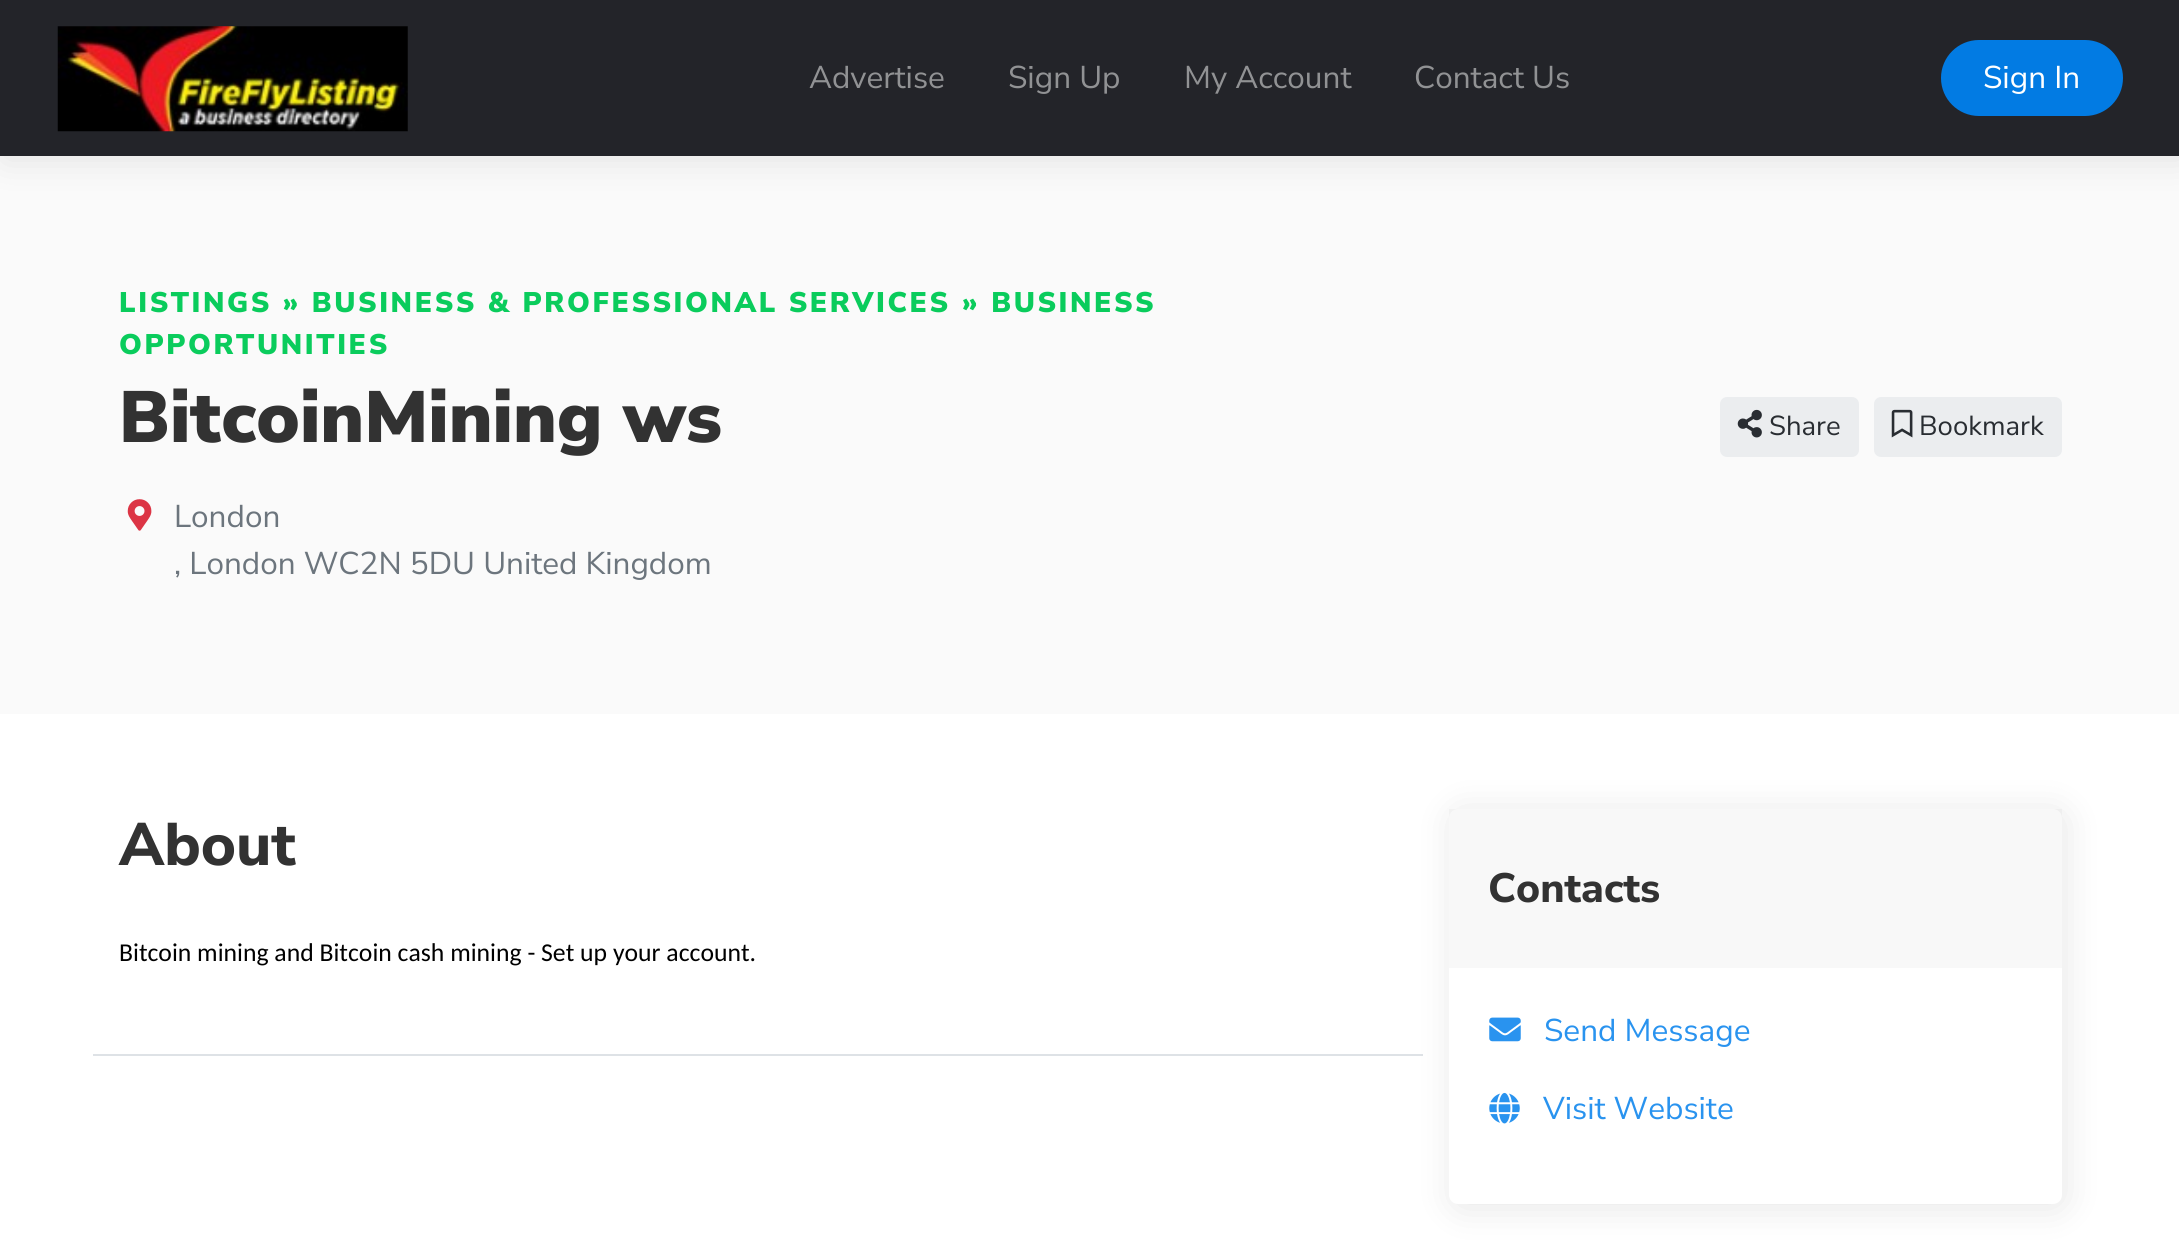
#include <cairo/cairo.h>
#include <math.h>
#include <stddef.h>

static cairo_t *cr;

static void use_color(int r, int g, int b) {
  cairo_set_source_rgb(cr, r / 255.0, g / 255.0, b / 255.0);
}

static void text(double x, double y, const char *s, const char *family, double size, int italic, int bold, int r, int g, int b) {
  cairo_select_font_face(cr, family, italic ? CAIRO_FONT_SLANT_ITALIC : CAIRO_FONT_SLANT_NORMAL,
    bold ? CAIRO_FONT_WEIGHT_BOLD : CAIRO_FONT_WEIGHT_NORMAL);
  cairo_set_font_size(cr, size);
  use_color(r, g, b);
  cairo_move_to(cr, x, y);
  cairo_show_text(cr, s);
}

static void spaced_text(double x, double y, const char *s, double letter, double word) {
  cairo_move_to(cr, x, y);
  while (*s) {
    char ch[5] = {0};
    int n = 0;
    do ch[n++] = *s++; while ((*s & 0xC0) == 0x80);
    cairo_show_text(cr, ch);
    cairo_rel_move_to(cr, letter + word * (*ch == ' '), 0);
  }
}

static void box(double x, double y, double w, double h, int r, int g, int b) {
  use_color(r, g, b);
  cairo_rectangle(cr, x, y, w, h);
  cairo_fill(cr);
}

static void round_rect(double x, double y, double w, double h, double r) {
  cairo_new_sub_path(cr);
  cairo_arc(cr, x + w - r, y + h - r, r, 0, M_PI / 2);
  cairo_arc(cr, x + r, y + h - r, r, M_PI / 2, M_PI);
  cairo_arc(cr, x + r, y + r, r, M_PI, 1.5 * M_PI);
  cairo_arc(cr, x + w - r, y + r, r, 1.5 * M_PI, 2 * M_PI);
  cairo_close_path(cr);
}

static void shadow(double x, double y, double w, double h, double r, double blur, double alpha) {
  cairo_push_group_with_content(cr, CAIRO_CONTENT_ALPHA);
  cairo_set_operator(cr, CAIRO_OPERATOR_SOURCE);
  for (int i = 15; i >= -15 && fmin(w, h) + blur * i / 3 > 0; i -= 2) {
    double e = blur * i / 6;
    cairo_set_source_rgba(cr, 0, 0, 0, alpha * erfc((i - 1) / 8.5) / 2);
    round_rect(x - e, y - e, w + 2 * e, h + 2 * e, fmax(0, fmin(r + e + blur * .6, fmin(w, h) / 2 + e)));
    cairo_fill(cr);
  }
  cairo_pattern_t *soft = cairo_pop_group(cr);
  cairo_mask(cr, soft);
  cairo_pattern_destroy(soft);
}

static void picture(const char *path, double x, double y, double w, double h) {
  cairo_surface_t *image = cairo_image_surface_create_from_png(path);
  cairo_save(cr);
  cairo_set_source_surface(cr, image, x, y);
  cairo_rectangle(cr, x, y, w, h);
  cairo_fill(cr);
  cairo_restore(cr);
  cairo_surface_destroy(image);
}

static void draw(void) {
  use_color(255, 255, 255);
  cairo_paint(cr);
  box(0, 156, 2179, 558, 250, 250, 250);
  use_color(0, 0, 0);
  shadow(4, 4, 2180, 155, 0, 17.5, 0.1);
  box(0, 0, 2179, 156, 35, 36, 41);
  picture("img_01.png", 57, 26, 351, 106);
  use_color(2, 123, 227);
  round_rect(1942, 41, 180, 74, 37);
  cairo_fill_preserve(cr);
  cairo_stroke(cr);
  picture("img_02.png", 127, 499, 25, 32);
  use_color(235, 237, 239);
  round_rect(1721, 398, 137, 58, 6);
  cairo_fill_preserve(cr);
  cairo_stroke(cr);
  picture("img_03.png", 1737, 409, 25, 29);
  round_rect(1875, 398, 186, 58, 6);
  cairo_fill_preserve(cr);
  cairo_stroke(cr);
  picture("img_04.png", 1891, 409, 22, 29);
  box(93, 1054, 1330, 2, 222, 226, 230);
  use_color(0, 0, 0);
  shadow(1453, 812, 612, 396, 9, 17.5, 0.1);
  use_color(255, 255, 255);
  round_rect(1449, 809, 613, 395, 9);
  cairo_fill(cr);
  cairo_set_source_rgba(cr, 0, 0, 0, 0.03);
  cairo_rectangle(cr, 1449, 809, 613, 159);
  cairo_fill(cr);
  picture("img_05.png", 1489, 1017, 32, 25);
  picture("img_06.png", 1489, 1092, 31, 32);
  text(809, 88, "Advertise", "Nunito Sans", 31.5, 0, 0, 145, 146, 148);
  text(1008, 88, "Sign Up", "Nunito Sans", 31.5, 0, 0, 145, 146, 148);
  text(1184, 88, "My Account", "Nunito Sans", 31.5, 0, 0, 145, 146, 148);
  text(1414, 88, "Contact Us", "Nunito Sans", 31.5, 0, 0, 145, 146, 148);
  text(1983, 88, "Sign In", "Nunito Sans", 31.5, 0, 0, 255, 255, 255);
  cairo_select_font_face(cr, "Nunito Sans Black", CAIRO_FONT_SLANT_NORMAL, CAIRO_FONT_WEIGHT_NORMAL);
  cairo_set_font_size(cr, 28.35);
  use_color(10, 204, 92);
  spaced_text(119, 312, "LISTINGS » BUSINESS & PROFESSIONAL SERVICES", 2.6, 0);
  spaced_text(962, 312, "» BUSINESS", 2.6, 0);
  spaced_text(119, 354, "OPPORTUNITIES", 2.6, 0);
  text(119, 442, "BitcoinMining ws", "Nunito Sans Black", 72.5, 0, 0, 50, 50, 50);
  text(174, 527, "London", "Nunito Sans", 31.5, 0, 0, 108, 117, 125);
  text(174, 574, ", London WC2N 5DU United Kingdom", "Nunito Sans", 31.5, 0, 0, 108, 117, 125);
  text(1769, 435, "Share", "Nunito Sans", 27.5, 0, 0, 41, 45, 50);
  text(1919, 435, "Bookmark", "Nunito Sans", 27.5, 0, 0, 41, 45, 50);
  text(119, 865, "About", "Nunito Sans ExtraBold", 60, 0, 0, 50, 50, 50);
  text(119, 961, "Bitcoin mining and Bitcoin cash mining - Set up your account.", "Carlito", 25.7, 0, 0, 0, 0, 0);
  text(1488, 902, "Contacts", "Nunito Sans ExtraBold", 41, 0, 0, 50, 50, 50);
  text(1544, 1041, "Send Message", "Nunito Sans", 31.5, 0, 0, 41, 147, 239);
  text(1543, 1119, "Visit Website", "Nunito Sans", 31.5, 0, 0, 41, 147, 239);
}

int main(void) {
  cairo_surface_t *surface = cairo_image_surface_create(CAIRO_FORMAT_RGB24, 2179, 1252);
  cr = cairo_create(surface);
  cairo_font_options_t *options = cairo_font_options_create();
  cairo_font_options_set_hint_metrics(options, CAIRO_HINT_METRICS_OFF);
  cairo_font_options_set_hint_style(options, CAIRO_HINT_STYLE_NONE);
  cairo_set_font_options(cr, options);
  cairo_set_miter_limit(cr, 4);
  draw();
  cairo_surface_write_to_png(surface, "out.png");
  cairo_font_options_destroy(options);
  cairo_destroy(cr);
  cairo_surface_destroy(surface);
  return 0;
}
